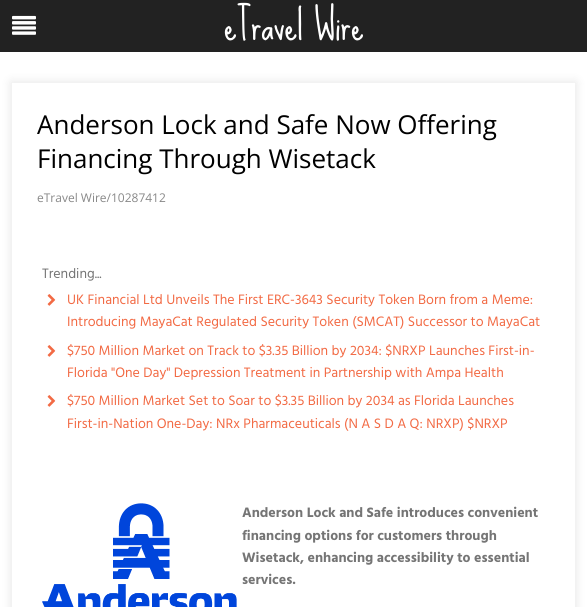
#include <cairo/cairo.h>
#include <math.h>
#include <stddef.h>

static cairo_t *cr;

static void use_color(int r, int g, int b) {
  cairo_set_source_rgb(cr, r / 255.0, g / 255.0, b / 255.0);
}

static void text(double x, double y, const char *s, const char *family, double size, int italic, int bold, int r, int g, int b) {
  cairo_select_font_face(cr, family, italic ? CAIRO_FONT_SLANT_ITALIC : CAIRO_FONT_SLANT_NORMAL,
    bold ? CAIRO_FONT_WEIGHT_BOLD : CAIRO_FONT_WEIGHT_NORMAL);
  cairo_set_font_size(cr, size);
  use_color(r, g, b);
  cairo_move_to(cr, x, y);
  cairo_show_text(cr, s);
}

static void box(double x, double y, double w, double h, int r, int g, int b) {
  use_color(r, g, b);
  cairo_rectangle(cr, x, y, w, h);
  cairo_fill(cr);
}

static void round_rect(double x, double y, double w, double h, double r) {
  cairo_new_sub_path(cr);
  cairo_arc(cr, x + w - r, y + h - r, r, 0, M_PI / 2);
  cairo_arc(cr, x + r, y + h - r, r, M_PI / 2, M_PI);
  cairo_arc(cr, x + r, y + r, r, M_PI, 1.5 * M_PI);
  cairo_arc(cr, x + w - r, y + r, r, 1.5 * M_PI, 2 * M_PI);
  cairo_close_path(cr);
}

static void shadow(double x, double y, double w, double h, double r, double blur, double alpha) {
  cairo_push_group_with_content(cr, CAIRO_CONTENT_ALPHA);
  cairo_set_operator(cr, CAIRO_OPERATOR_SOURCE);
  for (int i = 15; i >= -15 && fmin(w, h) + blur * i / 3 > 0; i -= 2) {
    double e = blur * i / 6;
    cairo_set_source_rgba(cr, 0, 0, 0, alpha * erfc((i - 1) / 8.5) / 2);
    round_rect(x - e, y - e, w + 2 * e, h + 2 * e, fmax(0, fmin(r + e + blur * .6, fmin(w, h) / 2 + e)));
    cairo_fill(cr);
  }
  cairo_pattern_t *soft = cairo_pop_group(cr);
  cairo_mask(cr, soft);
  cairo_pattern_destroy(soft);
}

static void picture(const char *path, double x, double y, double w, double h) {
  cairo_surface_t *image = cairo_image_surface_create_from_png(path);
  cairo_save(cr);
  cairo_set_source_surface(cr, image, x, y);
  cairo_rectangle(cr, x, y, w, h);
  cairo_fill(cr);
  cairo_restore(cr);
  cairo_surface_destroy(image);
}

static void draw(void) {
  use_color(255, 255, 255);
  cairo_paint(cr);
  box(0, 0, 587, 52, 34, 34, 34);
  picture("img_01.png", 12, 15, 24, 20);
  cairo_save(cr);
  cairo_set_fill_rule(cr, CAIRO_FILL_RULE_EVEN_ODD);
  cairo_new_path(cr);
  cairo_move_to(cr, 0, 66);
  cairo_line_to(cr, 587, 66);
  cairo_line_to(cr, 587, 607);
  cairo_line_to(cr, 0, 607);
  cairo_close_path(cr);
  cairo_move_to(cr, 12, 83);
  cairo_line_to(cr, 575, 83);
  cairo_line_to(cr, 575, 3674);
  cairo_line_to(cr, 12, 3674);
  cairo_close_path(cr);
  cairo_clip(cr);
  use_color(0, 0, 0);
  shadow(11, 82, 565, 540, 0, 5, 0.1);
  cairo_restore(cr);
  picture("img_02.png", 47, 294, 9, 12);
  picture("img_02.png", 47, 345, 9, 12);
  picture("img_02.png", 47, 395, 9, 12);
  picture("img_03.png", 42, 503, 195, 104);
  text(224, 40, "eTravel Wire", "Sue Ellen Francisco", 40, 0, 0, 255, 255, 255);
  text(37, 134, "Anderson Lock and Safe Now Offering", "Open Sans", 26, 0, 0, 0, 0, 0);
  text(37, 168, "Financing Through Wisetack", "Open Sans", 26, 0, 0, 0, 0, 0);
  text(37, 202, "eTravel Wire/10287412", "Open Sans", 12, 0, 0, 136, 136, 136);
  text(42, 278, "Trending...", "Hind", 14, 0, 0, 117, 117, 117);
  text(67, 304, "UK Financial Ltd Unveils The First ERC-3643 Security Token Born from a Meme:", "Hind", 14, 0, 0, 242, 106, 68);
  text(67, 326, "Introducing MayaCat Regulated Security Token (SMCAT) Successor to MayaCat", "Hind", 14, 0, 0, 242, 106, 68);
  text(67, 355, "$750 Million Market on Track to $3.35 Billion by 2034: $NRXP Launches First-in-", "Hind", 14, 0, 0, 242, 106, 68);
  text(67, 377, "Florida \"One Day\" Depression Treatment in Partnership with Ampa Health", "Hind", 14, 0, 0, 242, 106, 68);
  text(67, 405, "$750 Million Market Set to Soar to $3.35 Billion by 2034 as Florida Launches", "Hind", 14, 0, 0, 242, 106, 68);
  text(67, 428, "First-in-Nation One-Day: NRx Pharmaceuticals (N A S D A Q: NRXP) $NRXP", "Hind", 14, 0, 0, 242, 106, 68);
  text(242, 517, "Anderson Lock and Safe introduces convenient", "Hind", 14, 0, 1, 117, 117, 117);
  text(242, 540, "financing options for customers through", "Hind", 14, 0, 1, 117, 117, 117);
  text(242, 562, "Wisetack, enhancing accessibility to essential", "Hind", 14, 0, 1, 117, 117, 117);
  text(242, 584, "services.", "Hind", 14, 0, 1, 117, 117, 117);
}

int main(void) {
  cairo_surface_t *surface = cairo_image_surface_create(CAIRO_FORMAT_RGB24, 587, 607);
  cr = cairo_create(surface);
  cairo_font_options_t *options = cairo_font_options_create();
  cairo_font_options_set_hint_metrics(options, CAIRO_HINT_METRICS_OFF);
  cairo_font_options_set_hint_style(options, CAIRO_HINT_STYLE_NONE);
  cairo_set_font_options(cr, options);
  cairo_set_miter_limit(cr, 4);
  draw();
  cairo_surface_write_to_png(surface, "out.png");
  cairo_font_options_destroy(options);
  cairo_destroy(cr);
  cairo_surface_destroy(surface);
  return 0;
}
